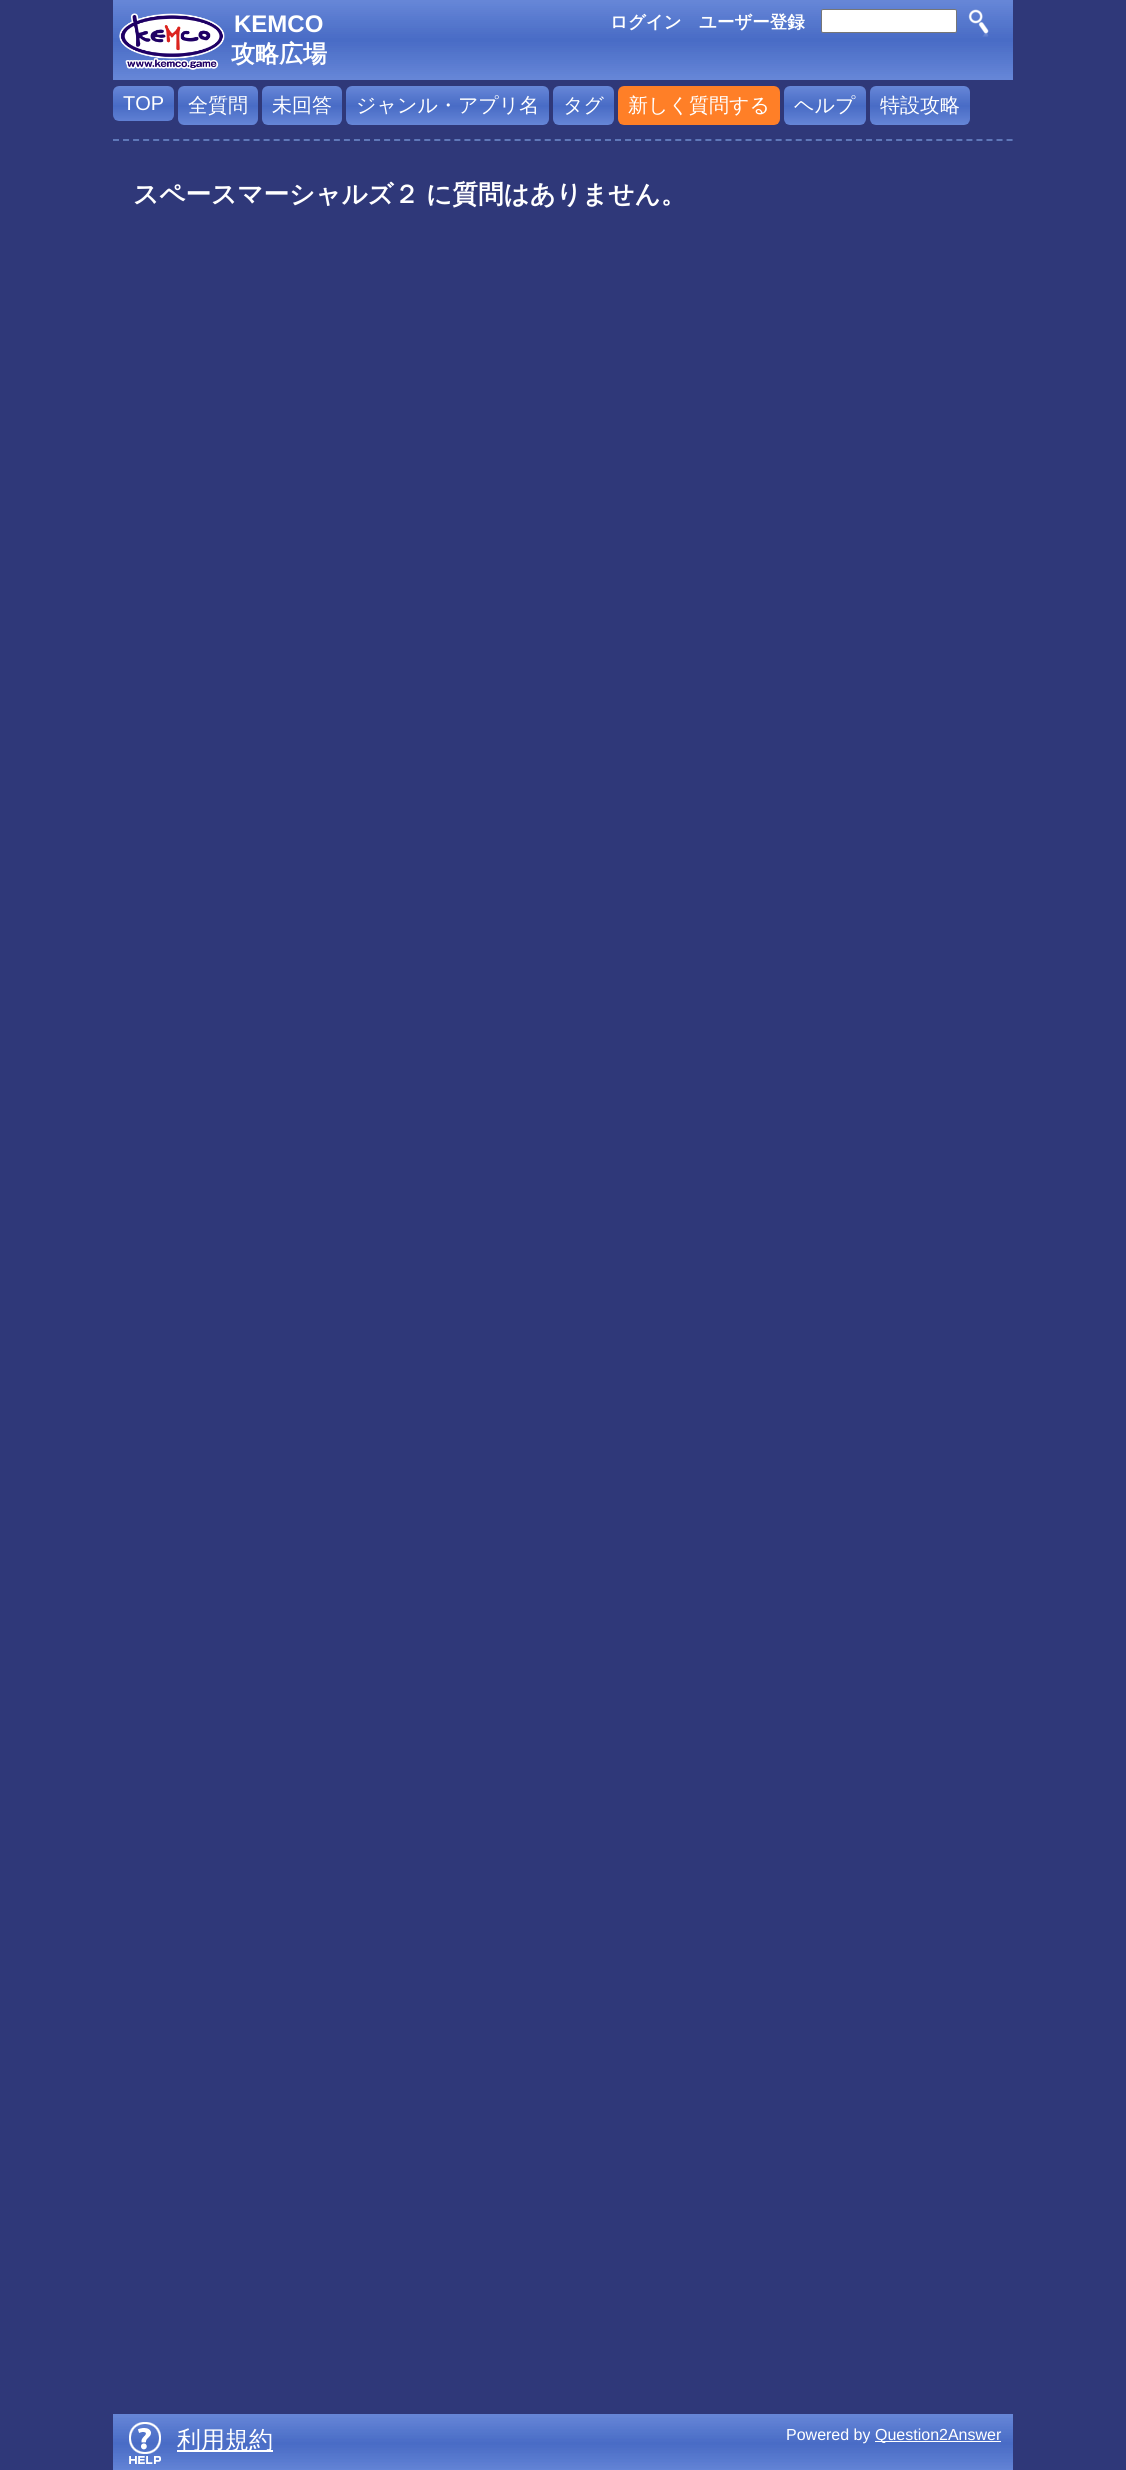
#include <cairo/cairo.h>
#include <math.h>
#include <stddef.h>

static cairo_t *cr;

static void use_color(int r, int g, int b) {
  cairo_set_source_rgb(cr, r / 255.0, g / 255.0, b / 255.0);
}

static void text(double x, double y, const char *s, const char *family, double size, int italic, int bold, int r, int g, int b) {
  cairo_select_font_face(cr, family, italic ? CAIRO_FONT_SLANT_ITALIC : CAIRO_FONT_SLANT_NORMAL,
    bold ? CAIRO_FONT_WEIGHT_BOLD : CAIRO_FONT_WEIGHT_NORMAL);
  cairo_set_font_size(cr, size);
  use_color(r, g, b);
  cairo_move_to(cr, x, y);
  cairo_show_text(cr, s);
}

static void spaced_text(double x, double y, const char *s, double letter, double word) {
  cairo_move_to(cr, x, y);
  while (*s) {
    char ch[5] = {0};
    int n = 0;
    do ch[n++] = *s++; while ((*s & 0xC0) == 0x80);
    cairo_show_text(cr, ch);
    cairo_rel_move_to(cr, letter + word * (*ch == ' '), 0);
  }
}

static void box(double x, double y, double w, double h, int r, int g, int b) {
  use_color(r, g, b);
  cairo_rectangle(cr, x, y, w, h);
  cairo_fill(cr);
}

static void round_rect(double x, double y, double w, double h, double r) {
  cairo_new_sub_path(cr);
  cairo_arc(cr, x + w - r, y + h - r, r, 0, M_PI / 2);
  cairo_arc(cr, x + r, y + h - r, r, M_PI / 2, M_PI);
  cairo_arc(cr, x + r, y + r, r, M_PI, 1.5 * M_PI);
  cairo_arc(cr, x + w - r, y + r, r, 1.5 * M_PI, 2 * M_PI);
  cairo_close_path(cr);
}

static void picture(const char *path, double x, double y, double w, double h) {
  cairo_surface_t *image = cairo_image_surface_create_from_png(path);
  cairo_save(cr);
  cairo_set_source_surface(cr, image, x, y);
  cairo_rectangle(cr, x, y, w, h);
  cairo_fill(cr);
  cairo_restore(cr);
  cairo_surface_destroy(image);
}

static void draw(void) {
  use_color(47, 56, 121);
  cairo_paint(cr);
  picture("img_01.png", 113, 0, 900, 80);
  picture("img_02.png", 119, 13, 106, 57);
  use_color(255, 255, 255);
  round_rect(821.5, 9.5, 135, 23, 1.5);
  cairo_fill_preserve(cr);
  use_color(118, 118, 118);
  cairo_set_line_width(cr, 1);
  cairo_stroke(cr);
  picture("img_03.png", 968, 9, 21, 28);
  picture("img_04.png", 113, 86, 61, 35);
  picture("img_05.png", 178, 86, 80, 39);
  picture("img_06.png", 262, 86, 80, 39);
  picture("img_07.png", 346, 86, 203, 39);
  picture("img_08.png", 553, 86, 61, 39);
  picture("img_09.png", 618, 86, 162, 39);
  picture("img_10.png", 784, 86, 82, 39);
  picture("img_11.png", 870, 86, 100, 39);
  cairo_new_path(cr);
  cairo_move_to(cr, 113, 140);
  cairo_line_to(cr, 1013, 140);
  use_color(95, 120, 185);
  cairo_set_line_width(cr, 2);
  cairo_set_dash(cr, (double[]){6, 4.04}, 2, 0);
  cairo_stroke(cr);
  picture("img_12.png", 113, 2414, 900, 56);
  picture("img_13.png", 129, 2422, 32, 42);
  box(177, 2450, 96, 2, 255, 255, 255);
  box(875, 2441, 126, 1, 255, 255, 255);
  text(234, 32, "KEMCO", "Liberation Sans", 24, 0, 1, 255, 255, 255);
  text(231, 62, "攻略広場", "WenQuanYi Zen Hei", 24, 0, 1, 255, 255, 255);
  text(610, 28, "ログイン", "WenQuanYi Zen Hei", 17.5, 0, 1, 255, 255, 255);
  text(699, 28, "ユーザー登録", "WenQuanYi Zen Hei", 17.5, 0, 1, 255, 255, 255);
  text(123, 110, "TOP", "Liberation Sans", 20, 0, 0, 255, 255, 255);
  text(188, 112, "全質問", "WenQuanYi Zen Hei Medium", 20, 0, 0, 255, 255, 255);
  text(272, 112, "未回答", "WenQuanYi Zen Hei Medium", 20, 0, 0, 255, 255, 255);
  text(356, 112, "ジャンル・アプリ名", "WenQuanYi Zen Hei Medium", 20, 0, 0, 255, 255, 255);
  text(563, 112, "タグ", "WenQuanYi Zen Hei Medium", 20, 0, 0, 255, 255, 255);
  text(628, 112, "新しく質問する", "WenQuanYi Zen Hei Medium", 20, 0, 0, 255, 255, 255);
  text(794, 112, "ヘルプ", "WenQuanYi Zen Hei Medium", 20, 0, 0, 255, 255, 255);
  text(880, 112, "特設攻略", "WenQuanYi Zen Hei Medium", 20, 0, 0, 255, 255, 255);
  cairo_select_font_face(cr, "WenQuanYi Zen Hei", CAIRO_FONT_SLANT_NORMAL, CAIRO_FONT_WEIGHT_BOLD);
  cairo_set_font_size(cr, 25.6);
  spaced_text(133, 203, "スペースマーシャルズ２ に質問はありません。", 0, -1);
  text(177, 2448, "利用規約", "WenQuanYi Zen Hei Medium", 24, 0, 0, 255, 255, 255);
  text(786, 2440, "Powered by", "Liberation Sans", 16, 0, 0, 255, 255, 255);
  text(875, 2440, "Question2Answer", "Liberation Sans", 16, 0, 0, 255, 255, 255);
}

int main(void) {
  cairo_surface_t *surface = cairo_image_surface_create(CAIRO_FORMAT_RGB24, 1126, 2470);
  cr = cairo_create(surface);
  cairo_font_options_t *options = cairo_font_options_create();
  cairo_font_options_set_hint_metrics(options, CAIRO_HINT_METRICS_OFF);
  cairo_font_options_set_hint_style(options, CAIRO_HINT_STYLE_NONE);
  cairo_set_font_options(cr, options);
  cairo_set_miter_limit(cr, 4);
  draw();
  cairo_surface_write_to_png(surface, "out.png");
  cairo_font_options_destroy(options);
  cairo_destroy(cr);
  cairo_surface_destroy(surface);
  return 0;
}
